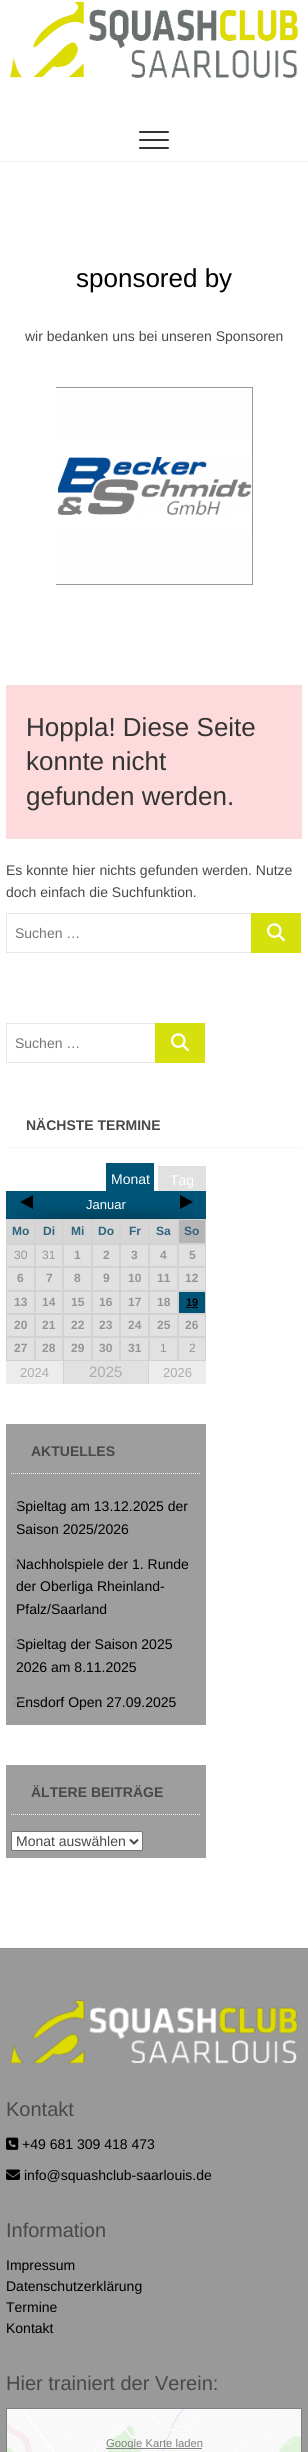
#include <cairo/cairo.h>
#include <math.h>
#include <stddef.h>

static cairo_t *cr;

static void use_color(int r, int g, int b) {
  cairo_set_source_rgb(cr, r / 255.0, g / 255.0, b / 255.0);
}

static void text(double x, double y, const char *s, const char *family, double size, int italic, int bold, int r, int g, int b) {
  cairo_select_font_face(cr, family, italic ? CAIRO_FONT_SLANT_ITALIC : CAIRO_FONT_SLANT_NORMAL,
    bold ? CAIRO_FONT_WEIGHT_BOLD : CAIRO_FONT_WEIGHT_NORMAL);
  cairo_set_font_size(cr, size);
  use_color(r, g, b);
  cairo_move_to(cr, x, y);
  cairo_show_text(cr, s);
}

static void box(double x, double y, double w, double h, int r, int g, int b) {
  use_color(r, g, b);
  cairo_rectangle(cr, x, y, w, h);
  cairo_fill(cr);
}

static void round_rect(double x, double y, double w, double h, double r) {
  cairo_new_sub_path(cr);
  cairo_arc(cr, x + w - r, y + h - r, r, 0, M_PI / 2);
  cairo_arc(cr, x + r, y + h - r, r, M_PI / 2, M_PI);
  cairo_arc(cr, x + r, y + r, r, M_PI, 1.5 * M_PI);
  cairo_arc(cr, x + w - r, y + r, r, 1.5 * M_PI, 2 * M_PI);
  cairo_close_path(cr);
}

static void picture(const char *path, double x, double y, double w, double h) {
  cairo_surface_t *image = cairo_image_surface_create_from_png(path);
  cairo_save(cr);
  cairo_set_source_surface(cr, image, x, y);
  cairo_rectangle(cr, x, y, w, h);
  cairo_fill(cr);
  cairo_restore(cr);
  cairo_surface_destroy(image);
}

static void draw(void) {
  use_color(255, 255, 255);
  cairo_paint(cr);
  box(0, 161, 308, 1, 242, 242, 242);
  picture("img_01.png", 10, 1, 288, 77);
  use_color(51, 51, 51);
  round_rect(139, 139, 30, 2, 1);
  cairo_fill(cr);
  round_rect(139, 131, 30, 2, 1);
  cairo_fill(cr);
  round_rect(139, 147, 30, 2, 1);
  cairo_fill(cr);
  cairo_rectangle(cr, 56.5, 387.5, 196, 197);
  use_color(153, 153, 153);
  cairo_set_line_width(cr, 1);
  cairo_stroke(cr);
  picture("img_02.png", 56, 388, 196, 196);
  box(6, 685, 296, 154, 253, 219, 221);
  cairo_rectangle(cr, 6.5, 913.5, 245, 39);
  use_color(230, 230, 230);
  cairo_stroke(cr);
  box(251, 913, 50, 40, 214, 224, 12);
  picture("img_03.png", 267, 923, 18, 19);
  cairo_rectangle(cr, 6.5, 1023.5, 149, 39);
  use_color(230, 230, 230);
  cairo_stroke(cr);
  box(155, 1023, 50, 40, 214, 224, 12);
  picture("img_03.png", 171, 1033, 18, 19);
  cairo_new_path(cr);
  cairo_move_to(cr, 6, 1147.5);
  cairo_line_to(cr, 302, 1147.5);
  use_color(238, 238, 238);
  cairo_set_dash(cr, (double[]){1, 1}, 2, 0);
  cairo_stroke(cr);
  box(7, 1245, 198, 139, 225, 225, 225);
  box(106, 1163, 48, 28, 0, 84, 120);
  box(158, 1166, 48, 25, 225, 225, 225);
  box(6, 1191, 200, 28, 0, 84, 120);
  picture("img_04.png", 6, 1205, 200, 14);
  use_color(0, 0, 0);
  cairo_new_path(cr);
  cairo_move_to(cr, 33, 1195);
  cairo_line_to(cr, 33, 1209);
  cairo_line_to(cr, 20, 1202);
  cairo_close_path(cr);
  cairo_fill(cr);
  cairo_new_path(cr);
  cairo_move_to(cr, 180, 1209);
  cairo_line_to(cr, 180, 1195);
  cairo_line_to(cr, 193, 1202);
  cairo_close_path(cr);
  cairo_fill(cr);
  box(7, 1220, 170, 23, 214, 214, 214);
  cairo_rectangle(cr, 6.5, 1219.5, 28, 24);
  use_color(210, 210, 210);
  cairo_set_dash(cr, NULL, 0, 0);
  cairo_stroke(cr);
  cairo_rectangle(cr, 35.5, 1219.5, 27, 24);
  cairo_stroke(cr);
  cairo_rectangle(cr, 63.5, 1219.5, 28, 24);
  cairo_stroke(cr);
  cairo_rectangle(cr, 92.5, 1219.5, 27, 24);
  cairo_stroke(cr);
  cairo_rectangle(cr, 120.5, 1219.5, 28, 24);
  cairo_stroke(cr);
  cairo_rectangle(cr, 149.5, 1219.5, 28, 24);
  cairo_stroke(cr);
  use_color(181, 181, 181);
  cairo_rectangle(cr, 178.5, 1219.5, 27, 24);
  cairo_fill_preserve(cr);
  use_color(210, 210, 210);
  cairo_stroke(cr);
  cairo_rectangle(cr, 6.5, 1244.5, 28, 22);
  cairo_stroke(cr);
  cairo_rectangle(cr, 35.5, 1244.5, 27, 22);
  cairo_stroke(cr);
  cairo_rectangle(cr, 63.5, 1244.5, 28, 22);
  cairo_stroke(cr);
  cairo_rectangle(cr, 92.5, 1244.5, 27, 22);
  cairo_stroke(cr);
  cairo_rectangle(cr, 120.5, 1244.5, 28, 22);
  cairo_stroke(cr);
  cairo_rectangle(cr, 149.5, 1244.5, 28, 22);
  cairo_stroke(cr);
  cairo_rectangle(cr, 178.5, 1244.5, 27, 22);
  cairo_stroke(cr);
  cairo_rectangle(cr, 6.5, 1267.5, 28, 23);
  cairo_stroke(cr);
  cairo_rectangle(cr, 35.5, 1267.5, 27, 23);
  cairo_stroke(cr);
  cairo_rectangle(cr, 63.5, 1267.5, 28, 23);
  cairo_stroke(cr);
  cairo_rectangle(cr, 92.5, 1267.5, 27, 23);
  cairo_stroke(cr);
  cairo_rectangle(cr, 120.5, 1267.5, 28, 23);
  cairo_stroke(cr);
  cairo_rectangle(cr, 149.5, 1267.5, 28, 23);
  cairo_stroke(cr);
  cairo_rectangle(cr, 178.5, 1267.5, 27, 23);
  cairo_stroke(cr);
  cairo_rectangle(cr, 6.5, 1291.5, 28, 22);
  cairo_stroke(cr);
  cairo_rectangle(cr, 35.5, 1291.5, 27, 22);
  cairo_stroke(cr);
  cairo_rectangle(cr, 63.5, 1291.5, 28, 22);
  cairo_stroke(cr);
  cairo_rectangle(cr, 92.5, 1291.5, 27, 22);
  cairo_stroke(cr);
  cairo_rectangle(cr, 120.5, 1291.5, 28, 22);
  cairo_stroke(cr);
  cairo_rectangle(cr, 149.5, 1291.5, 28, 22);
  cairo_stroke(cr);
  use_color(0, 84, 120);
  cairo_rectangle(cr, 178.5, 1291.5, 27, 22);
  cairo_fill_preserve(cr);
  use_color(210, 210, 210);
  cairo_stroke(cr);
  box(186, 1307, 12, 1, 0, 0, 0);
  cairo_rectangle(cr, 6.5, 1314.5, 28, 22);
  use_color(210, 210, 210);
  cairo_stroke(cr);
  cairo_rectangle(cr, 35.5, 1314.5, 27, 22);
  cairo_stroke(cr);
  cairo_rectangle(cr, 63.5, 1314.5, 28, 22);
  cairo_stroke(cr);
  cairo_rectangle(cr, 92.5, 1314.5, 27, 22);
  cairo_stroke(cr);
  cairo_rectangle(cr, 120.5, 1314.5, 28, 22);
  cairo_stroke(cr);
  cairo_rectangle(cr, 149.5, 1314.5, 28, 22);
  cairo_stroke(cr);
  cairo_rectangle(cr, 178.5, 1314.5, 27, 22);
  cairo_stroke(cr);
  cairo_rectangle(cr, 6.5, 1337.5, 28, 23);
  cairo_stroke(cr);
  cairo_rectangle(cr, 35.5, 1337.5, 27, 23);
  cairo_stroke(cr);
  cairo_rectangle(cr, 63.5, 1337.5, 28, 23);
  cairo_stroke(cr);
  cairo_rectangle(cr, 92.5, 1337.5, 27, 23);
  cairo_stroke(cr);
  cairo_rectangle(cr, 120.5, 1337.5, 28, 23);
  cairo_stroke(cr);
  cairo_rectangle(cr, 149.5, 1337.5, 28, 23);
  cairo_stroke(cr);
  cairo_rectangle(cr, 178.5, 1337.5, 27, 23);
  cairo_stroke(cr);
  box(6, 1361, 57, 23, 236, 236, 236);
  box(148, 1361, 1, 23, 210, 210, 210);
  box(63, 1361, 1, 23, 210, 210, 210);
  box(149, 1361, 57, 23, 236, 236, 236);
  box(6, 1424, 200, 301, 158, 158, 158);
  cairo_new_path(cr);
  cairo_move_to(cr, 11, 1473.5);
  cairo_line_to(cr, 201, 1473.5);
  use_color(238, 238, 238);
  cairo_set_dash(cr, (double[]){1, 1}, 2, 0);
  cairo_stroke(cr);
  box(6, 1765, 200, 93, 158, 158, 158);
  cairo_new_path(cr);
  cairo_move_to(cr, 11, 1814.5);
  cairo_line_to(cr, 201, 1814.5);
  use_color(238, 238, 238);
  cairo_stroke(cr);
  use_color(255, 255, 255);
  round_rect(11.5, 1831.5, 131, 19, 1.5);
  cairo_fill_preserve(cr);
  use_color(118, 118, 118);
  cairo_set_dash(cr, NULL, 0, 0);
  cairo_stroke(cr);
  cairo_new_path(cr);
  cairo_move_to(cr, 130, 1839.5);
  cairo_line_to(cr, 134, 1843.5);
  cairo_line_to(cr, 138, 1839.5);
  use_color(72, 72, 72);
  cairo_set_line_width(cr, 2);
  cairo_stroke(cr);
  box(0, 1949, 308, 503, 153, 153, 153);
  box(0, 1948, 308, 1, 145, 145, 145);
  picture("img_08.png", 10, 2000, 288, 64);
  picture("img_09.png", 6, 2137, 13, 13);
  picture("img_10.png", 6, 2169, 14, 11);
  picture("img_11.png", 7, 2409, 294, 43);
  cairo_rectangle(cr, 6.5, 2408.5, 295, 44);
  use_color(128, 128, 128);
  cairo_set_line_width(cr, 1);
  cairo_stroke(cr);
  box(106, 2448, 96, 1, 128, 128, 128);
  text(76, 287, "sponsored by", "Arimo", 26, 0, 0, 0, 0, 0);
  text(25, 341, "wir bedanken uns bei unseren Sponsoren", "Arimo", 14, 0, 0, 72, 72, 72);
  text(26, 736, "Hoppla! Diese Seite", "Arimo", 26, 0, 0, 52, 52, 52);
  text(26, 770, "konnte nicht", "Arimo", 26, 0, 0, 52, 52, 52);
  text(26, 805, "gefunden werden.", "Arimo", 26, 0, 0, 52, 52, 52);
  text(6, 875, "Es konnte hier nichts gefunden werden. Nutze", "Arimo", 14, 0, 0, 72, 72, 72);
  text(6, 897, "doch einfach die Suchfunktion.", "Arimo", 14, 0, 0, 72, 72, 72);
  text(15, 938, "Suchen …", "Arimo", 14, 0, 0, 117, 117, 117);
  text(15, 1048, "Suchen …", "Arimo", 14, 0, 0, 117, 117, 117);
  text(26, 1130, "NÄCHSTE TERMINE", "Arimo", 14, 0, 1, 72, 72, 72);
  text(111, 1184, "Monat", "Arimo", 14, 0, 0, 255, 255, 255);
  text(170, 1185, "Tag", "Arimo", 14, 0, 0, 255, 255, 255);
  text(86, 1209, "Januar", "Arimo", 13, 0, 0, 255, 255, 255);
  text(12, 1235, "Mo", "Arimo", 12, 0, 1, 47, 100, 125);
  text(43, 1235, "Di", "Arimo", 12, 0, 1, 47, 100, 125);
  text(71, 1235, "Mi", "Arimo", 12, 0, 1, 47, 100, 125);
  text(98, 1235, "Do", "Arimo", 12, 0, 1, 47, 100, 125);
  text(129, 1235, "Fr", "Arimo", 12, 0, 1, 47, 100, 125);
  text(156, 1235, "Sa", "Arimo", 12, 0, 1, 47, 100, 125);
  text(184, 1235, "So", "Arimo", 12, 0, 1, 47, 100, 125);
  text(14, 1259, "30", "Arimo", 12, 0, 0, 147, 150, 153);
  text(42, 1259, "31", "Arimo", 12, 0, 0, 147, 150, 153);
  text(74, 1259, "1", "Arimo", 12, 0, 1, 147, 150, 153);
  text(103, 1259, "2", "Arimo", 12, 0, 1, 147, 150, 153);
  text(131, 1259, "3", "Arimo", 12, 0, 1, 147, 150, 153);
  text(160, 1259, "4", "Arimo", 12, 0, 1, 147, 150, 153);
  text(189, 1259, "5", "Arimo", 12, 0, 1, 147, 150, 153);
  text(17, 1282, "6", "Arimo", 12, 0, 1, 147, 150, 153);
  text(46, 1282, "7", "Arimo", 12, 0, 1, 147, 150, 153);
  text(74, 1282, "8", "Arimo", 12, 0, 1, 147, 150, 153);
  text(103, 1282, "9", "Arimo", 12, 0, 1, 147, 150, 153);
  text(128, 1282, "10", "Arimo", 12, 0, 1, 147, 150, 153);
  text(157, 1282, "11", "Arimo", 12, 0, 1, 147, 150, 153);
  text(185, 1282, "12", "Arimo", 12, 0, 1, 147, 150, 153);
  text(14, 1306, "13", "Arimo", 12, 0, 1, 147, 150, 153);
  text(42, 1306, "14", "Arimo", 12, 0, 1, 147, 150, 153);
  text(71, 1306, "15", "Arimo", 12, 0, 1, 147, 150, 153);
  text(99, 1306, "16", "Arimo", 12, 0, 1, 147, 150, 153);
  text(128, 1306, "17", "Arimo", 12, 0, 1, 147, 150, 153);
  text(157, 1306, "18", "Arimo", 12, 0, 1, 147, 150, 153);
  text(186, 1306, "19", "Arimo", 11, 0, 1, 0, 0, 0);
  text(14, 1329, "20", "Arimo", 12, 0, 1, 147, 150, 153);
  text(42, 1329, "21", "Arimo", 12, 0, 1, 147, 150, 153);
  text(71, 1329, "22", "Arimo", 12, 0, 1, 147, 150, 153);
  text(99, 1329, "23", "Arimo", 12, 0, 1, 147, 150, 153);
  text(128, 1329, "24", "Arimo", 12, 0, 1, 147, 150, 153);
  text(157, 1329, "25", "Arimo", 12, 0, 1, 147, 150, 153);
  text(185, 1329, "26", "Arimo", 12, 0, 1, 147, 150, 153);
  text(14, 1352, "27", "Arimo", 12, 0, 1, 147, 150, 153);
  text(42, 1352, "28", "Arimo", 12, 0, 1, 147, 150, 153);
  text(71, 1352, "29", "Arimo", 12, 0, 1, 147, 150, 153);
  text(99, 1352, "30", "Arimo", 12, 0, 1, 147, 150, 153);
  text(128, 1352, "31", "Arimo", 12, 0, 1, 147, 150, 153);
  text(160, 1352, "1", "Arimo", 12, 0, 0, 147, 150, 153);
  text(189, 1352, "2", "Arimo", 12, 0, 0, 147, 150, 153);
  text(20, 1377, "2024", "Arimo", 13, 0, 0, 172, 172, 172);
  text(89, 1377, "2025", "Arimo", 15, 0, 0, 172, 172, 172);
  text(163, 1377, "2026", "Arimo", 13, 0, 0, 172, 172, 172);
  text(31, 1456, "AKTUELLES", "Arimo", 14, 0, 1, 72, 72, 72);
  text(16, 1511, "Spieltag am 13.12.2025 der", "Arimo", 14, 0, 0, 0, 0, 0);
  picture("img_05.png", 13, 1500, 6, 10);
  text(16, 1534, "Saison 2025/2026", "Arimo", 14, 0, 0, 0, 0, 0);
  text(16, 1569, "Nachholspiele der 1. Runde", "Arimo", 14, 0, 0, 0, 0, 0);
  picture("img_06.png", 13, 1558, 6, 10);
  text(16, 1591, "der Oberliga Rheinland-", "Arimo", 14, 0, 0, 0, 0, 0);
  text(16, 1614, "Pfalz/Saarland", "Arimo", 14, 0, 0, 0, 0, 0);
  text(16, 1649, "Spieltag der Saison 2025", "Arimo", 14, 0, 0, 0, 0, 0);
  picture("img_05.png", 13, 1638, 6, 10);
  text(16, 1672, "2026 am 8.11.2025", "Arimo", 14, 0, 0, 0, 0, 0);
  text(16, 1707, "Ensdorf Open 27.09.2025", "Arimo", 14, 0, 0, 0, 0, 0);
  picture("img_07.png", 13, 1696, 6, 10);
  text(31, 1797, "ÄLTERE BEITRÄGE", "Arimo", 14, 0, 1, 72, 72, 72);
  text(16, 1846, "Monat auswählen", "Arimo", 14, 0, 0, 72, 72, 72);
  text(6, 2116, "Kontakt", "Arimo", 20, 0, 0, 72, 72, 72);
  text(22, 2149, "+49 681 309 418 473", "Arimo", 14, 0, 0, 0, 0, 0);
  text(24, 2180, "info@squashclub-saarlouis.de", "Arimo", 14, 0, 0, 0, 0, 0);
  text(6, 2237, "Information", "Arimo", 20, 0, 0, 72, 72, 72);
  text(6, 2270, "Impressum", "Arimo", 14, 0, 0, 0, 0, 0);
  text(6, 2291, "Datenschutzerklärung", "Arimo", 14, 0, 0, 0, 0, 0);
  text(6, 2312, "Termine", "Arimo", 14, 0, 0, 0, 0, 0);
  text(6, 2333, "Kontakt", "Arimo", 14, 0, 0, 0, 0, 0);
  text(6, 2390, "Hier trainiert der Verein:", "Arimo", 20, 0, 0, 72, 72, 72);
  text(106, 2447, "Google Karte laden", "Arimo", 11.25, 0, 0, 128, 128, 128);
}

int main(void) {
  cairo_surface_t *surface = cairo_image_surface_create(CAIRO_FORMAT_RGB24, 308, 2452);
  cr = cairo_create(surface);
  cairo_font_options_t *options = cairo_font_options_create();
  cairo_font_options_set_hint_metrics(options, CAIRO_HINT_METRICS_OFF);
  cairo_font_options_set_hint_style(options, CAIRO_HINT_STYLE_NONE);
  cairo_set_font_options(cr, options);
  cairo_set_miter_limit(cr, 4);
  draw();
  cairo_surface_write_to_png(surface, "out.png");
  cairo_font_options_destroy(options);
  cairo_destroy(cr);
  cairo_surface_destroy(surface);
  return 0;
}
